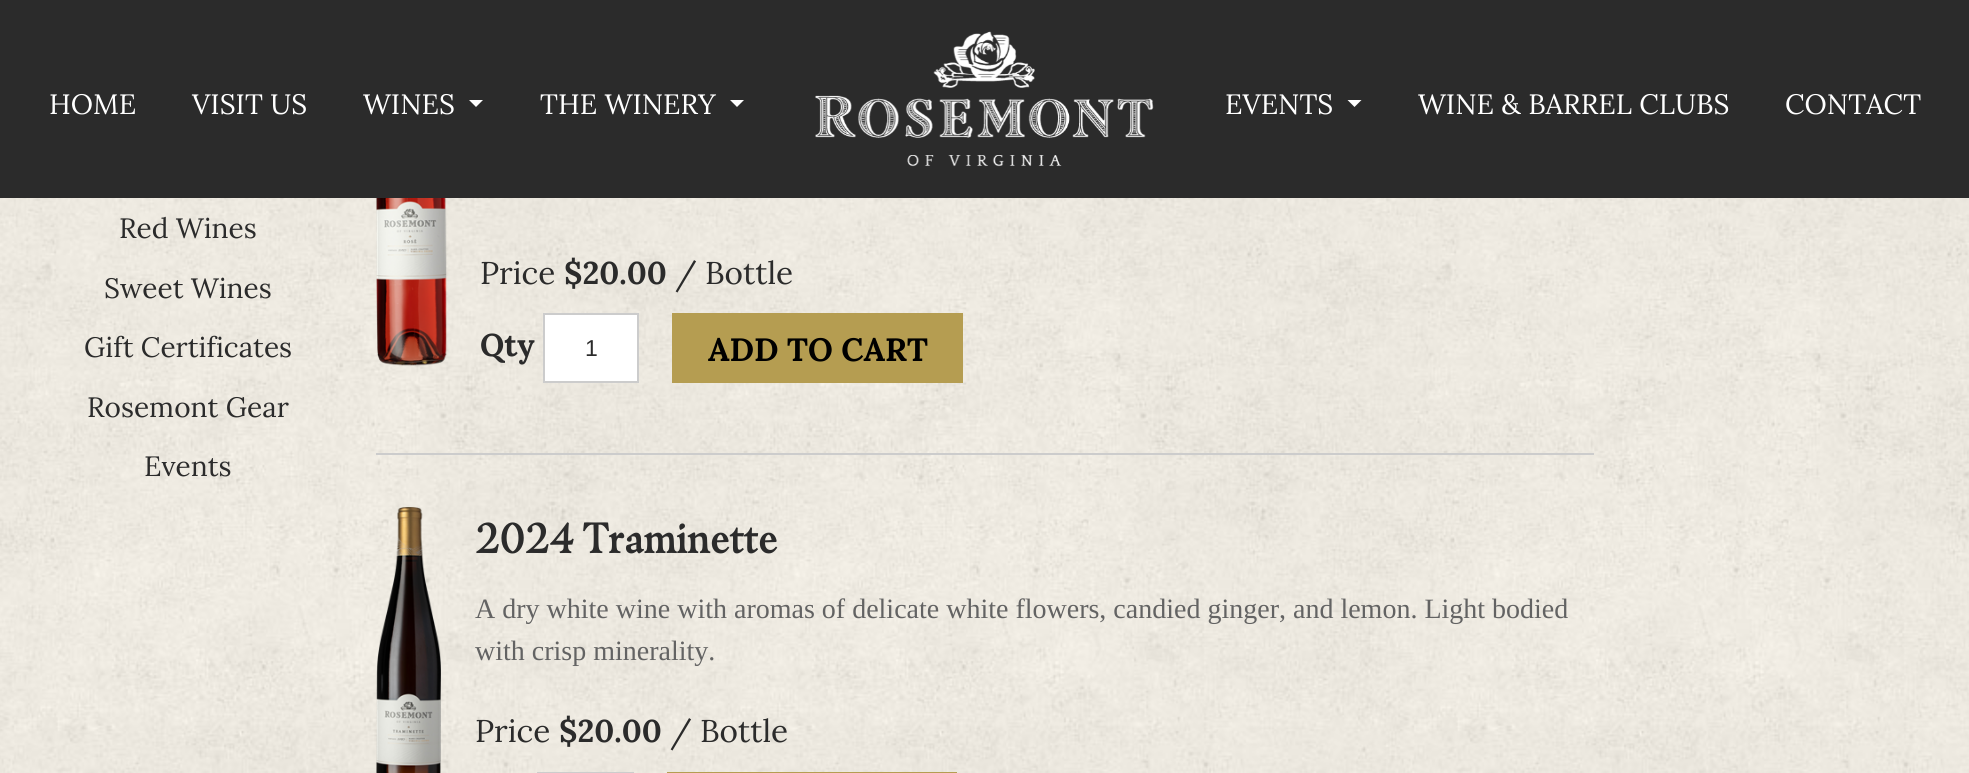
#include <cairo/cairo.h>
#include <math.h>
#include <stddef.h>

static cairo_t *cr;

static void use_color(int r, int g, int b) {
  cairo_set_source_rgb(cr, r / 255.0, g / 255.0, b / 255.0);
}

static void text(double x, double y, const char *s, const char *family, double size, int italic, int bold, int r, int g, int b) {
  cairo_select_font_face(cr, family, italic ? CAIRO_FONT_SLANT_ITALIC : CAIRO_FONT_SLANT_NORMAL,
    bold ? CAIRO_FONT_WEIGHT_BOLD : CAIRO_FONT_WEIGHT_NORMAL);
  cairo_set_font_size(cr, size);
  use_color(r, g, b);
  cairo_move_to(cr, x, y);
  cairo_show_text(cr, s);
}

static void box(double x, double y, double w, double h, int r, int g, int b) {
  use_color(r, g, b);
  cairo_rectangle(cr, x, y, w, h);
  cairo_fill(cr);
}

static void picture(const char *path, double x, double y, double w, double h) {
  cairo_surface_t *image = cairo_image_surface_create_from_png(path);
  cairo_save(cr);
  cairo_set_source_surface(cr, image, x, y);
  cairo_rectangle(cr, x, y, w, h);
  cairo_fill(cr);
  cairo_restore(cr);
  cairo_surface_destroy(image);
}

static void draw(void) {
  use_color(255, 255, 255);
  cairo_paint(cr);
  picture("img_01.png", 0, 198, 1969, 575);
  box(0, 0, 1969, 198, 43, 43, 43);
  use_color(255, 255, 255);
  cairo_new_path(cr);
  cairo_move_to(cr, 469, 100);
  cairo_line_to(cr, 483, 100);
  cairo_line_to(cr, 476, 107);
  cairo_close_path(cr);
  cairo_fill(cr);
  cairo_new_path(cr);
  cairo_move_to(cr, 730, 100);
  cairo_line_to(cr, 744, 100);
  cairo_line_to(cr, 737, 107);
  cairo_close_path(cr);
  cairo_fill(cr);
  picture("img_02.png", 815, 31, 339, 136);
  cairo_new_path(cr);
  cairo_move_to(cr, 1347.5, 100);
  cairo_line_to(cr, 1361.5, 100);
  cairo_line_to(cr, 1354.5, 107);
  cairo_close_path(cr);
  cairo_fill(cr);
  box(376, 453, 1218, 2, 204, 204, 204);
  picture("img_03.png", 376, 198, 71, 168);
  use_color(255, 255, 255);
  cairo_rectangle(cr, 544, 314, 94, 68);
  cairo_fill_preserve(cr);
  use_color(204, 204, 204);
  cairo_stroke(cr);
  box(672, 313, 291, 70, 181, 157, 81);
  picture("img_04.png", 376, 507, 65, 266);
  cairo_rectangle(cr, 538, 773, 95, 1);
  use_color(204, 204, 204);
  cairo_stroke(cr);
  box(667, 772, 290, 1, 181, 157, 81);
  text(49, 114, "HOME", "Lora", 28, 0, 0, 255, 255, 255);
  text(192, 114, "VISIT US", "Lora", 28, 0, 0, 255, 255, 255);
  text(363, 114, "WINES", "Lora", 28, 0, 0, 255, 255, 255);
  text(540, 114, "THE WINERY", "Lora", 28, 0, 0, 255, 255, 255);
  text(1225, 114, "EVENTS", "Lora", 28, 0, 0, 255, 255, 255);
  text(1418, 114, "WINE & BARREL CLUBS", "Lora", 28, 0, 0, 255, 255, 255);
  text(1785, 114, "CONTACT", "Lora", 28, 0, 0, 255, 255, 255);
  text(119, 238, "Red Wines", "Lora", 28, 0, 0, 43, 43, 43);
  text(104, 298, "Sweet Wines", "Lora", 28, 0, 0, 43, 43, 43);
  text(84, 357, "Gift Certificates", "Lora", 28, 0, 0, 43, 43, 43);
  text(87, 417, "Rosemont Gear", "Lora", 28, 0, 0, 43, 43, 43);
  text(144, 476, "Events", "Lora", 28, 0, 0, 43, 43, 43);
  text(480, 284, "Price", "Lora", 31.5, 0, 0, 43, 43, 43);
  text(564, 284, "$20.00", "Lora", 31.5, 0, 1, 43, 43, 43);
  text(675, 284, "/ Bottle", "Lora", 31.5, 0, 0, 43, 43, 43);
  text(480, 356, "Qty", "Lora", 31.5, 0, 1, 43, 43, 43);
  text(585, 356, "1", "Liberation Sans", 23, 0, 0, 43, 43, 43);
  text(708, 361, "ADD TO CART", "Lora", 32.25, 0, 1, 0, 0, 0);
  text(475, 553, "2024 Traminette", "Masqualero", 42, 0, 1, 43, 43, 43);
  text(475, 618, "A dry white wine with aromas of delicate white flowers, candied ginger, and lemon. Light bodied", "Liberation Serif", 28, 0, 0, 99, 99, 99);
  text(475, 660, "with crisp minerality.", "Liberation Serif", 28, 0, 0, 99, 99, 99);
  text(475, 742, "Price", "Lora", 31.5, 0, 0, 43, 43, 43);
  text(559, 742, "$20.00", "Lora", 31.5, 0, 1, 43, 43, 43);
  text(670, 742, "/ Bottle", "Lora", 31.5, 0, 0, 43, 43, 43);
}

int main(void) {
  cairo_surface_t *surface = cairo_image_surface_create(CAIRO_FORMAT_RGB24, 1969, 773);
  cr = cairo_create(surface);
  cairo_font_options_t *options = cairo_font_options_create();
  cairo_font_options_set_hint_metrics(options, CAIRO_HINT_METRICS_OFF);
  cairo_font_options_set_hint_style(options, CAIRO_HINT_STYLE_NONE);
  cairo_set_font_options(cr, options);
  cairo_set_miter_limit(cr, 4);
  draw();
  cairo_surface_write_to_png(surface, "out.png");
  cairo_font_options_destroy(options);
  cairo_destroy(cr);
  cairo_surface_destroy(surface);
  return 0;
}
